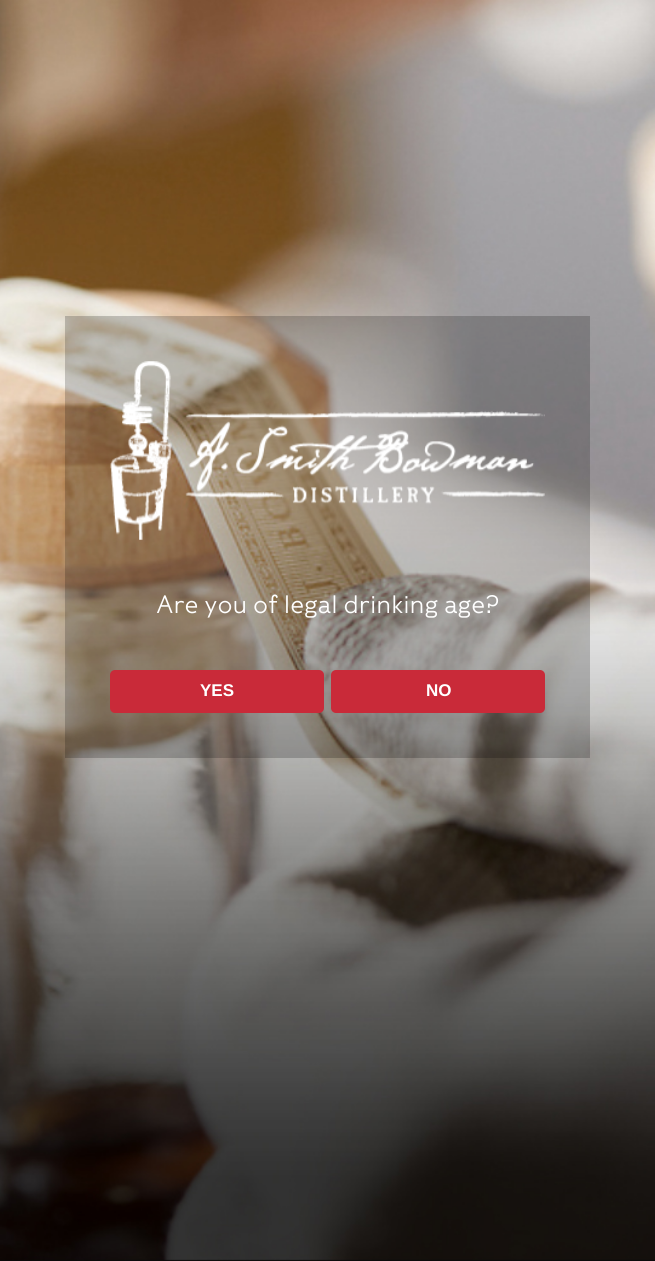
#include <cairo/cairo.h>
#include <math.h>
#include <stddef.h>

static cairo_t *cr;

static void use_color(int r, int g, int b) {
  cairo_set_source_rgb(cr, r / 255.0, g / 255.0, b / 255.0);
}

static void text(double x, double y, const char *s, const char *family, double size, int italic, int bold, int r, int g, int b) {
  cairo_select_font_face(cr, family, italic ? CAIRO_FONT_SLANT_ITALIC : CAIRO_FONT_SLANT_NORMAL,
    bold ? CAIRO_FONT_WEIGHT_BOLD : CAIRO_FONT_WEIGHT_NORMAL);
  cairo_set_font_size(cr, size);
  use_color(r, g, b);
  cairo_move_to(cr, x, y);
  cairo_show_text(cr, s);
}

static void round_rect(double x, double y, double w, double h, double r) {
  cairo_new_sub_path(cr);
  cairo_arc(cr, x + w - r, y + h - r, r, 0, M_PI / 2);
  cairo_arc(cr, x + r, y + h - r, r, M_PI / 2, M_PI);
  cairo_arc(cr, x + r, y + r, r, M_PI, 1.5 * M_PI);
  cairo_arc(cr, x + w - r, y + r, r, 1.5 * M_PI, 2 * M_PI);
  cairo_close_path(cr);
}

static void picture(const char *path, double x, double y, double w, double h) {
  cairo_surface_t *image = cairo_image_surface_create_from_png(path);
  cairo_save(cr);
  cairo_set_source_surface(cr, image, x, y);
  cairo_rectangle(cr, x, y, w, h);
  cairo_fill(cr);
  cairo_restore(cr);
  cairo_surface_destroy(image);
}

static void draw(void) {
  use_color(255, 255, 255);
  cairo_paint(cr);
  picture("img_01.png", 0, 0, 655, 1261);
  cairo_set_source_rgba(cr, 0, 0, 0, 0.2);
  cairo_rectangle(cr, 65, 316, 525, 442);
  cairo_fill(cr);
  picture("img_02.png", 110, 361, 435, 179);
  use_color(201, 42, 57);
  round_rect(110, 670, 214, 43, 5);
  cairo_fill(cr);
  round_rect(331, 670, 214, 43, 5);
  cairo_fill(cr);
  text(156, 613, "Are you of legal drinking age?", "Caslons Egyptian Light", 25, 0, 0, 255, 255, 255);
  text(200, 696, "YES", "Liberation Sans", 17, 0, 1, 255, 255, 255);
  text(426, 696, "NO", "Liberation Sans", 17, 0, 1, 255, 255, 255);
}

int main(void) {
  cairo_surface_t *surface = cairo_image_surface_create(CAIRO_FORMAT_RGB24, 655, 1261);
  cr = cairo_create(surface);
  cairo_font_options_t *options = cairo_font_options_create();
  cairo_font_options_set_hint_metrics(options, CAIRO_HINT_METRICS_OFF);
  cairo_font_options_set_hint_style(options, CAIRO_HINT_STYLE_NONE);
  cairo_set_font_options(cr, options);
  cairo_set_miter_limit(cr, 4);
  draw();
  cairo_surface_write_to_png(surface, "out.png");
  cairo_font_options_destroy(options);
  cairo_destroy(cr);
  cairo_surface_destroy(surface);
  return 0;
}
